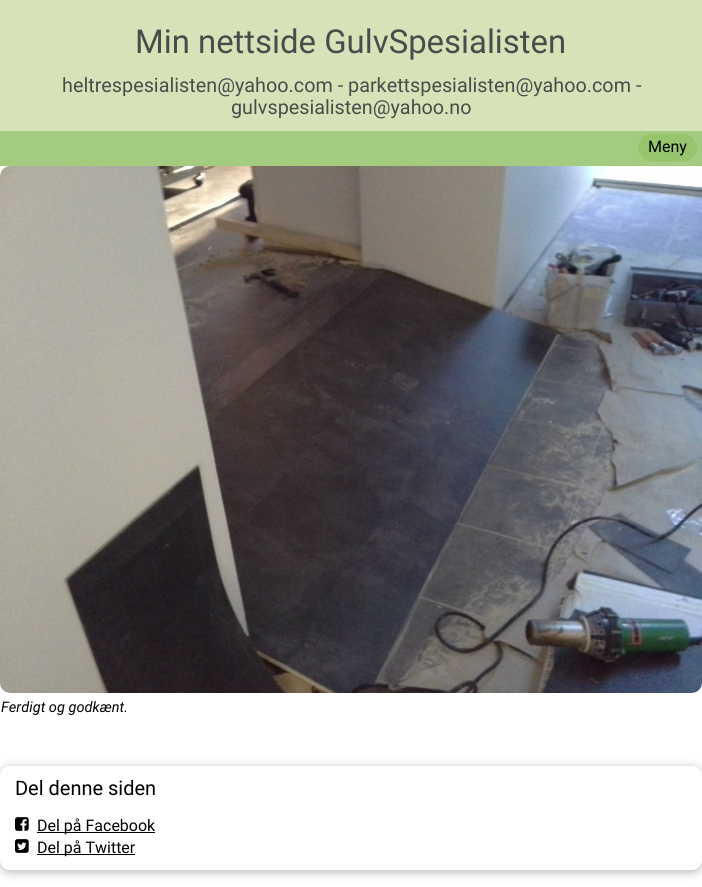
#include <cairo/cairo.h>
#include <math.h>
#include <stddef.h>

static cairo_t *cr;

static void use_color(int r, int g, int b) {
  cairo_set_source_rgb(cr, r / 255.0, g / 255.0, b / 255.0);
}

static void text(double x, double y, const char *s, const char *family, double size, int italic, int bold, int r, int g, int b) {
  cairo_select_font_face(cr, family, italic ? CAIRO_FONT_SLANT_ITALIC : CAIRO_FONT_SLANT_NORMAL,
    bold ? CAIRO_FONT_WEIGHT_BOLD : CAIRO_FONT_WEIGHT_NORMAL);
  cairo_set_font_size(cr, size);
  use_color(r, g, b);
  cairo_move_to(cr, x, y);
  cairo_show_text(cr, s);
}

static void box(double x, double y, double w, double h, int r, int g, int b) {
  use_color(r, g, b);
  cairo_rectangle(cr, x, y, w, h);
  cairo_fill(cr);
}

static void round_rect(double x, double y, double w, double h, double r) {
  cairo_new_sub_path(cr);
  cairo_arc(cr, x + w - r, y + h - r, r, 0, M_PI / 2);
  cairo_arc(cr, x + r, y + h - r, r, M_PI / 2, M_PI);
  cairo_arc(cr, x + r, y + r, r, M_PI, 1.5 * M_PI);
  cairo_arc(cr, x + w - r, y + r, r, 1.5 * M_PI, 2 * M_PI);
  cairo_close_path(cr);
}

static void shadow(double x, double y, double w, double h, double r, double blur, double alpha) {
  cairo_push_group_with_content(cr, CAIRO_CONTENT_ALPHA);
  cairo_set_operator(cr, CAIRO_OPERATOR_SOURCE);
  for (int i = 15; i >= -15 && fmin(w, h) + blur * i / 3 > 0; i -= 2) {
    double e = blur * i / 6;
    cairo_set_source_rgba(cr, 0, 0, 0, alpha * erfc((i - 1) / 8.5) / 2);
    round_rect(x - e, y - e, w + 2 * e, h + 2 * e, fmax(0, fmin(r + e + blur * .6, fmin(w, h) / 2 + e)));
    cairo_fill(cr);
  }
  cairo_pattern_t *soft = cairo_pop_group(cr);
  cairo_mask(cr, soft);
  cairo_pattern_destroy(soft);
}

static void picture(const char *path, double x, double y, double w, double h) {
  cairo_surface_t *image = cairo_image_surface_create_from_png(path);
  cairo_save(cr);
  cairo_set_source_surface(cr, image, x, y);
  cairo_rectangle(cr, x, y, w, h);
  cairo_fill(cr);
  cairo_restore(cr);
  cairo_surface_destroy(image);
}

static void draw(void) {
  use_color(255, 255, 255);
  cairo_paint(cr);
  box(0, 0, 702, 131, 214, 227, 184);
  box(0, 131, 702, 35, 163, 204, 128);
  use_color(170, 208, 138);
  cairo_new_path(cr);
  cairo_move_to(cr, 638, 148);
  cairo_curve_to(cr, 638, 151, 639, 154, 640, 157);
  cairo_curve_to(cr, 646, 165, 658, 163, 668, 163);
  cairo_curve_to(cr, 677, 163, 689, 165, 695, 157);
  cairo_curve_to(cr, 696, 154, 697, 151, 697, 148);
  cairo_curve_to(cr, 696, 165, 679, 162, 668, 162);
  cairo_curve_to(cr, 656, 162, 639, 165, 638, 148);
  cairo_close_path(cr);
  cairo_fill(cr);
  use_color(150, 197, 110);
  round_rect(638, 133, 59, 29, 14.5);
  cairo_fill(cr);
  cairo_set_source_rgba(cr, 1, 1, 1, 0.1);
  cairo_new_path(cr);
  cairo_move_to(cr, 652, 134);
  cairo_line_to(cr, 682, 134);
  cairo_curve_to(cr, 691, 134, 697, 140, 697, 148);
  cairo_curve_to(cr, 697, 145, 696, 142, 695, 139);
  cairo_curve_to(cr, 689, 131, 677, 133, 668, 133);
  cairo_curve_to(cr, 658, 133, 646, 131, 640, 139);
  cairo_curve_to(cr, 639, 142, 638, 145, 638, 148);
  cairo_curve_to(cr, 638, 140, 644, 134, 652, 134);
  cairo_close_path(cr);
  cairo_fill(cr);
  picture("img_01.png", 0, 166, 702, 527);
  use_color(0, 0, 0);
  shadow(0, 768, 702, 104, 10, 5, 0.29);
  use_color(255, 255, 255);
  round_rect(0, 766, 702, 104, 10);
  cairo_fill(cr);
  picture("img_02.png", 15, 817, 14, 14);
  box(37, 832, 118, 1, 0, 0, 0);
  picture("img_03.png", 15, 839, 14, 14);
  box(37, 854, 98, 1, 0, 0, 0);
  text(135, 53, "Min nettside GulvSpesialisten", "Roboto", 32.9, 0, 0, 72, 76, 75);
  text(62, 92, "heltrespesialisten@yahoo.com - parkettspesialisten@yahoo.com -", "Roboto", 19.8, 0, 0, 72, 76, 75);
  text(231, 114, "gulvspesialisten@yahoo.no", "Roboto", 19.8, 0, 0, 72, 76, 75);
  text(648, 152, "Meny", "Roboto", 16, 0, 0, 0, 0, 0);
  text(1, 712, "Ferdigt og godkænt.", "Roboto", 14.5, 1, 0, 0, 0, 0);
  text(15, 795, "Del denne siden", "Roboto", 20, 0, 0, 0, 0, 0);
  text(37, 831, "Del på Facebook", "Roboto", 16, 0, 0, 0, 0, 0);
  text(37, 853, "Del på Twitter", "Roboto", 16, 0, 0, 0, 0, 0);
}

int main(void) {
  cairo_surface_t *surface = cairo_image_surface_create(CAIRO_FORMAT_RGB24, 702, 887);
  cr = cairo_create(surface);
  cairo_font_options_t *options = cairo_font_options_create();
  cairo_font_options_set_hint_metrics(options, CAIRO_HINT_METRICS_OFF);
  cairo_font_options_set_hint_style(options, CAIRO_HINT_STYLE_NONE);
  cairo_set_font_options(cr, options);
  cairo_set_miter_limit(cr, 4);
  draw();
  cairo_surface_write_to_png(surface, "out.png");
  cairo_font_options_destroy(options);
  cairo_destroy(cr);
  cairo_surface_destroy(surface);
  return 0;
}
